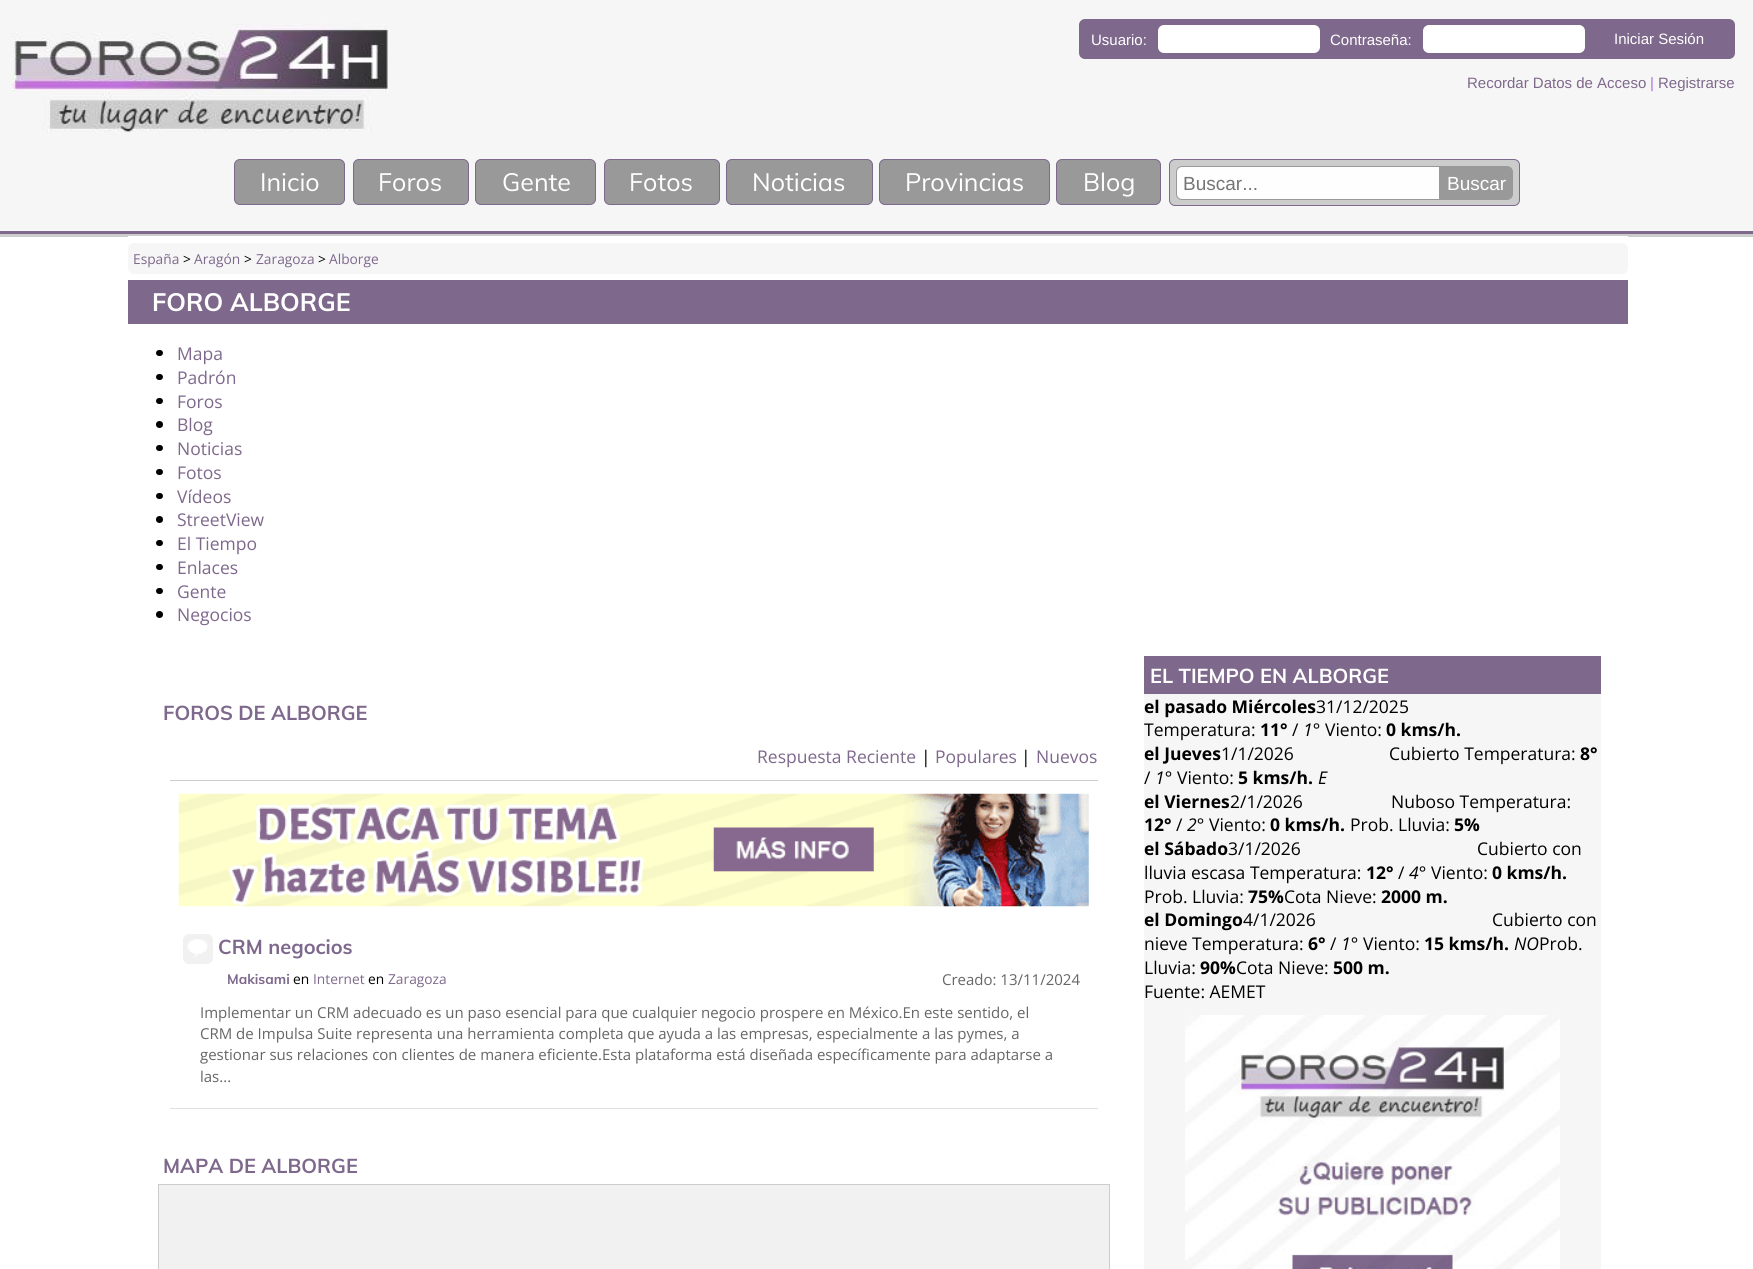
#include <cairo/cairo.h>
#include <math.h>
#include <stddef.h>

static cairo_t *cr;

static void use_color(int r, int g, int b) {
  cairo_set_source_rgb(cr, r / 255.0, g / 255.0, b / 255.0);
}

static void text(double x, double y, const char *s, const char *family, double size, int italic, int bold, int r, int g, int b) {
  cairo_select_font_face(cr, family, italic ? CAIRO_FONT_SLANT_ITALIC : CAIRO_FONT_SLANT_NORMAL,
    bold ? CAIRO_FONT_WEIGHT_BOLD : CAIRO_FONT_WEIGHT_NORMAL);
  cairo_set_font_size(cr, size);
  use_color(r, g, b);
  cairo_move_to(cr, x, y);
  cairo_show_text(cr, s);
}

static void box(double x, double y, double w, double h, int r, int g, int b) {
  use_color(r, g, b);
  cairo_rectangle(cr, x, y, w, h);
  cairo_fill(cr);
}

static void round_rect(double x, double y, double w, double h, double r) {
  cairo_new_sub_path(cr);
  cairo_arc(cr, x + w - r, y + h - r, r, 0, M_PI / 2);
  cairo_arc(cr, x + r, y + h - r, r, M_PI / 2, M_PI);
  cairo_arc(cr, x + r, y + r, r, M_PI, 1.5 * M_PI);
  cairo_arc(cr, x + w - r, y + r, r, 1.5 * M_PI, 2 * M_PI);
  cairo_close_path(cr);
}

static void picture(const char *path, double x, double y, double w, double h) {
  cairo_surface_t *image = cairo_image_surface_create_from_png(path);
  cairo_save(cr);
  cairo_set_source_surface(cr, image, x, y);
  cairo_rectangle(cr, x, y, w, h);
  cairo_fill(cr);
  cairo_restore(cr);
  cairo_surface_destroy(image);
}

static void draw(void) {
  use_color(255, 255, 255);
  cairo_paint(cr);
  box(0, 0, 1753, 231, 246, 246, 246);
  box(0, 234, 1753, 3, 204, 204, 204);
  picture("img_01.png", 12, 23, 376, 110);
  use_color(126, 104, 140);
  round_rect(1079, 19, 656, 40, 6);
  cairo_fill(cr);
  use_color(255, 255, 255);
  round_rect(1158, 25, 162, 28, 6);
  cairo_fill(cr);
  round_rect(1423, 25, 162, 28, 6);
  cairo_fill(cr);
  box(0, 231, 1753, 3, 126, 104, 140);
  use_color(153, 153, 153);
  round_rect(234.5, 159.5, 110, 45, 5.5);
  cairo_fill_preserve(cr);
  use_color(126, 104, 140);
  cairo_set_line_width(cr, 1);
  cairo_stroke(cr);
  use_color(153, 153, 153);
  round_rect(353.5, 159.5, 115, 45, 5.5);
  cairo_fill_preserve(cr);
  use_color(126, 104, 140);
  cairo_stroke(cr);
  use_color(153, 153, 153);
  round_rect(475.5, 159.5, 120, 45, 5.5);
  cairo_fill_preserve(cr);
  use_color(126, 104, 140);
  cairo_stroke(cr);
  use_color(153, 153, 153);
  round_rect(604.5, 159.5, 115, 45, 5.5);
  cairo_fill_preserve(cr);
  use_color(126, 104, 140);
  cairo_stroke(cr);
  use_color(153, 153, 153);
  round_rect(726.5, 159.5, 146, 45, 5.5);
  cairo_fill_preserve(cr);
  use_color(126, 104, 140);
  cairo_stroke(cr);
  use_color(153, 153, 153);
  round_rect(879.5, 159.5, 170, 45, 5.5);
  cairo_fill_preserve(cr);
  use_color(126, 104, 140);
  cairo_stroke(cr);
  use_color(153, 153, 153);
  round_rect(1056.5, 159.5, 104, 45, 5.5);
  cairo_fill_preserve(cr);
  use_color(126, 104, 140);
  cairo_stroke(cr);
  use_color(204, 204, 204);
  round_rect(1169.5, 159.5, 350, 46, 5.5);
  cairo_fill_preserve(cr);
  use_color(126, 104, 140);
  cairo_stroke(cr);
  use_color(254, 254, 254);
  cairo_new_path(cr);
  cairo_move_to(cr, 1182, 166.5);
  cairo_line_to(cr, 1439.5, 166.5);
  cairo_line_to(cr, 1439.5, 199.5);
  cairo_line_to(cr, 1182, 199.5);
  cairo_curve_to(cr, 1179, 199.5, 1176.5, 197, 1176.5, 194);
  cairo_line_to(cr, 1176.5, 172);
  cairo_curve_to(cr, 1176.5, 169, 1179, 166.5, 1182, 166.5);
  cairo_close_path(cr);
  cairo_fill_preserve(cr);
  use_color(153, 153, 153);
  cairo_stroke(cr);
  cairo_new_path(cr);
  cairo_move_to(cr, 1440.5, 166.5);
  cairo_line_to(cr, 1507, 166.5);
  cairo_curve_to(cr, 1510, 166.5, 1512.5, 169, 1512.5, 172);
  cairo_line_to(cr, 1512.5, 194);
  cairo_curve_to(cr, 1512.5, 197, 1510, 199.5, 1507, 199.5);
  cairo_line_to(cr, 1440.5, 199.5);
  cairo_close_path(cr);
  cairo_fill_preserve(cr);
  cairo_stroke(cr);
  box(128, 236, 1500, 1, 255, 255, 255);
  use_color(246, 246, 246);
  round_rect(128, 243, 1500, 31, 6);
  cairo_fill(cr);
  box(128, 280, 1500, 44, 126, 104, 140);
  use_color(0, 0, 0);
  round_rect(156, 350, 7, 6, 3);
  cairo_fill(cr);
  round_rect(156, 374, 7, 6, 3);
  cairo_fill(cr);
  round_rect(156, 398, 7, 6, 3);
  cairo_fill(cr);
  cairo_arc(cr, 159.5, 424.5, 3.5, 0, 2 * M_PI);
  cairo_fill(cr);
  round_rect(156, 445, 7, 6, 3);
  cairo_fill(cr);
  round_rect(156, 469, 7, 6, 3);
  cairo_fill(cr);
  round_rect(156, 493, 7, 6, 3);
  cairo_fill(cr);
  cairo_arc(cr, 159.5, 519.5, 3.5, 0, 2 * M_PI);
  cairo_fill(cr);
  round_rect(156, 540, 7, 6, 3);
  cairo_fill(cr);
  round_rect(156, 564, 7, 6, 3);
  cairo_fill(cr);
  round_rect(156, 588, 7, 6, 3);
  cairo_fill(cr);
  cairo_arc(cr, 159.5, 614.5, 3.5, 0, 2 * M_PI);
  cairo_fill(cr);
  box(170, 780, 928, 1, 204, 204, 204);
  picture("img_02.png", 178, 793, 911, 114);
  box(170, 1108, 928, 1, 225, 225, 225);
  use_color(241, 241, 241);
  round_rect(183, 934, 30, 30, 6);
  cairo_fill(cr);
  picture("img_03.png", 187, 939, 21, 19);
  cairo_rectangle(cr, 158.5, 1184.5, 951, 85);
  use_color(204, 204, 204);
  cairo_stroke(cr);
  box(159, 1185, 950, 84, 241, 241, 241);
  box(1144, 694, 457, 575, 246, 246, 246);
  box(1144, 656, 457, 38, 126, 104, 140);
  picture("img_04.png", 1185, 1015, 375, 254);
  text(1091, 45, "Usuario:", "Liberation Sans", 15, 0, 0, 255, 255, 255);
  text(1330, 45, "Contraseña:", "Liberation Sans", 15, 0, 0, 255, 255, 255);
  text(1614, 44, "Iniciar Sesión", "Liberation Sans", 15, 0, 0, 255, 255, 255);
  text(1467, 88, "Recordar Datos de Acceso", "Liberation Sans", 15, 0, 0, 126, 104, 140);
  text(1650, 88, "|", "Liberation Sans", 15, 0, 0, 177, 110, 219);
  text(1658, 88, "Registrarse", "Liberation Sans", 15, 0, 0, 126, 104, 140);
  text(260, 191, "Inicio", "Muli", 25, 0, 0, 255, 255, 255);
  text(378, 191, "Foros", "Muli", 25, 0, 0, 255, 255, 255);
  text(502, 191, "Gente", "Muli", 25, 0, 0, 255, 255, 255);
  text(629, 191, "Fotos", "Muli", 25, 0, 0, 255, 255, 255);
  text(752, 191, "Noticias", "Muli", 25, 0, 0, 255, 255, 255);
  text(905, 191, "Provincias", "Muli", 25, 0, 0, 255, 255, 255);
  text(1083, 191, "Blog", "Muli", 25, 0, 0, 255, 255, 255);
  text(1183, 190, "Buscar...", "Liberation Sans", 19, 0, 0, 117, 117, 117);
  text(1447, 190, "Buscar", "Liberation Sans", 19, 0, 0, 255, 255, 255);
  text(133, 264, "España", "Open Sans", 13.75, 0, 0, 126, 104, 140);
  text(183, 264, ">", "Open Sans", 13.75, 0, 0, 0, 0, 0);
  text(194, 264, "Aragón", "Open Sans", 13.75, 0, 0, 126, 104, 140);
  text(244, 264, ">", "Open Sans", 13.75, 0, 0, 0, 0, 0);
  text(256, 264, "Zaragoza", "Open Sans", 13.75, 0, 0, 126, 104, 140);
  text(318, 264, ">", "Open Sans", 13.75, 0, 0, 0, 0, 0);
  text(329, 264, "Alborge", "Open Sans", 13.75, 0, 0, 126, 104, 140);
  text(152, 311, "FORO ALBORGE", "Muli", 25, 0, 1, 255, 255, 255);
  text(177, 360, "Mapa", "Open Sans", 17.5, 0, 0, 126, 104, 140);
  text(177, 384, "Padrón", "Open Sans", 17.5, 0, 0, 126, 104, 140);
  text(177, 408, "Foros", "Open Sans", 17.5, 0, 0, 126, 104, 140);
  text(177, 431, "Blog", "Open Sans", 17.5, 0, 0, 126, 104, 140);
  text(177, 455, "Noticias", "Open Sans", 17.5, 0, 0, 126, 104, 140);
  text(177, 479, "Fotos", "Open Sans", 17.5, 0, 0, 126, 104, 140);
  text(177, 503, "Vídeos", "Open Sans", 17.5, 0, 0, 126, 104, 140);
  text(177, 526, "StreetView", "Open Sans", 17.5, 0, 0, 126, 104, 140);
  text(177, 550, "El Tiempo", "Open Sans", 17.5, 0, 0, 126, 104, 140);
  text(177, 574, "Enlaces", "Open Sans", 17.5, 0, 0, 126, 104, 140);
  text(177, 598, "Gente", "Open Sans", 17.5, 0, 0, 126, 104, 140);
  text(177, 621, "Negocios", "Open Sans", 17.5, 0, 0, 126, 104, 140);
  text(163, 720, "FOROS DE ALBORGE", "Muli", 20, 0, 1, 126, 104, 140);
  text(757, 763, "Respuesta Reciente", "Open Sans", 17.5, 0, 0, 126, 104, 140);
  text(921, 763, "|", "Open Sans", 17.5, 0, 0, 0, 0, 0);
  text(935, 763, "Populares", "Open Sans", 17.5, 0, 0, 126, 104, 140);
  text(1021, 763, "|", "Open Sans", 17.5, 0, 0, 0, 0, 0);
  text(1036, 763, "Nuevos", "Open Sans", 17.5, 0, 0, 126, 104, 140);
  text(218, 954, "CRM negocios", "Muli", 20, 0, 1, 126, 104, 140);
  text(227, 984, "Makisami", "Muli", 13.75, 0, 1, 126, 104, 140);
  text(293, 984, "en", "Open Sans", 13.75, 0, 0, 0, 0, 0);
  text(313, 984, "Internet", "Open Sans", 13.75, 0, 0, 126, 104, 140);
  text(368, 984, "en", "Open Sans", 13.75, 0, 0, 0, 0, 0);
  text(388, 984, "Zaragoza", "Open Sans", 13.75, 0, 0, 126, 104, 140);
  text(942, 985, "Creado: 13/11/2024", "Open Sans", 15, 0, 0, 102, 102, 102);
  text(200, 1018, "Implementar un CRM adecuado es un paso esencial para que cualquier negocio prospere en México.En este sentido, el", "Open Sans", 15, 0, 0, 102, 102, 102);
  text(200, 1039, "CRM de Impulsa Suite representa una herramienta completa que ayuda a las empresas, especialmente a las pymes, a", "Open Sans", 15, 0, 0, 102, 102, 102);
  text(200, 1060, "gestionar sus relaciones con clientes de manera eficiente.Esta plataforma está diseñada específicamente para adaptarse a", "Open Sans", 15, 0, 0, 102, 102, 102);
  text(200, 1082, "las...", "Open Sans", 15, 0, 0, 102, 102, 102);
  text(163, 1173, "MAPA DE ALBORGE", "Muli", 20, 0, 1, 126, 104, 140);
  text(1150, 683, "EL TIEMPO EN ALBORGE", "Muli", 20, 0, 1, 255, 255, 255);
  text(1144, 713, "el pasado Miércoles", "Open Sans", 17.5, 0, 1, 0, 0, 0);
  text(1316, 713, "31/12/2025", "Open Sans", 17.5, 0, 0, 0, 0, 0);
  text(1144, 736, "Temperatura:", "Open Sans", 17.5, 0, 0, 0, 0, 0);
  text(1260, 736, "11°", "Open Sans", 17.5, 0, 1, 0, 0, 0);
  text(1292, 736, "/", "Open Sans", 17.5, 0, 0, 0, 0, 0);
  text(1303, 736, "1°", "Open Sans", 17.5, 1, 0, 0, 0, 0);
  text(1325, 736, "Viento:", "Open Sans", 17.5, 0, 0, 0, 0, 0);
  text(1386, 736, "0 kms/h.", "Open Sans", 17.5, 0, 1, 0, 0, 0);
  text(1144, 760, "el Jueves", "Open Sans", 17.5, 0, 1, 0, 0, 0);
  text(1221, 760, "1/1/2026", "Open Sans", 17.5, 0, 0, 0, 0, 0);
  text(1389, 760, "Cubierto Temperatura:", "Open Sans", 17.5, 0, 0, 0, 0, 0);
  text(1580, 760, "8°", "Open Sans", 17.5, 0, 1, 0, 0, 0);
  text(1144, 784, "/", "Open Sans", 17.5, 0, 0, 0, 0, 0);
  text(1155, 784, "1°", "Open Sans", 17.5, 1, 0, 0, 0, 0);
  text(1177, 784, "Viento:", "Open Sans", 17.5, 0, 0, 0, 0, 0);
  text(1238, 784, "5 kms/h.", "Open Sans", 17.5, 0, 1, 0, 0, 0);
  text(1318, 784, "E", "Open Sans", 17.5, 1, 0, 0, 0, 0);
  text(1144, 808, "el Viernes", "Open Sans", 17.5, 0, 1, 0, 0, 0);
  text(1230, 808, "2/1/2026", "Open Sans", 17.5, 0, 0, 0, 0, 0);
  text(1391, 808, "Nuboso Temperatura:", "Open Sans", 17.5, 0, 0, 0, 0, 0);
  text(1144, 831, "12°", "Open Sans", 17.5, 0, 1, 0, 0, 0);
  text(1176, 831, "/", "Open Sans", 17.5, 0, 0, 0, 0, 0);
  text(1187, 831, "2°", "Open Sans", 17.5, 1, 0, 0, 0, 0);
  text(1209, 831, "Viento:", "Open Sans", 17.5, 0, 0, 0, 0, 0);
  text(1270, 831, "0 kms/h.", "Open Sans", 17.5, 0, 1, 0, 0, 0);
  text(1350, 831, "Prob. Lluvia:", "Open Sans", 17.5, 0, 0, 0, 0, 0);
  text(1454, 831, "5%", "Open Sans", 17.5, 0, 1, 0, 0, 0);
  text(1144, 855, "el Sábado", "Open Sans", 17.5, 0, 1, 0, 0, 0);
  text(1228, 855, "3/1/2026", "Open Sans", 17.5, 0, 0, 0, 0, 0);
  text(1477, 855, "Cubierto con", "Open Sans", 17.5, 0, 0, 0, 0, 0);
  text(1144, 879, "lluvia escasa Temperatura:", "Open Sans", 17.5, 0, 0, 0, 0, 0);
  text(1366, 879, "12°", "Open Sans", 17.5, 0, 1, 0, 0, 0);
  text(1398, 879, "/", "Open Sans", 17.5, 0, 0, 0, 0, 0);
  text(1409, 879, "4°", "Open Sans", 17.5, 1, 0, 0, 0, 0);
  text(1431, 879, "Viento:", "Open Sans", 17.5, 0, 0, 0, 0, 0);
  text(1492, 879, "0 kms/h.", "Open Sans", 17.5, 0, 1, 0, 0, 0);
  text(1144, 903, "Prob. Lluvia:", "Open Sans", 17.5, 0, 0, 0, 0, 0);
  text(1248, 903, "75%", "Open Sans", 17.5, 0, 1, 0, 0, 0);
  text(1284, 903, "Cota Nieve:", "Open Sans", 17.5, 0, 0, 0, 0, 0);
  text(1381, 903, "2000 m.", "Open Sans", 17.5, 0, 1, 0, 0, 0);
  text(1144, 926, "el Domingo", "Open Sans", 17.5, 0, 1, 0, 0, 0);
  text(1243, 926, "4/1/2026", "Open Sans", 17.5, 0, 0, 0, 0, 0);
  text(1492, 926, "Cubierto con", "Open Sans", 17.5, 0, 0, 0, 0, 0);
  text(1144, 950, "nieve Temperatura:", "Open Sans", 17.5, 0, 0, 0, 0, 0);
  text(1308, 950, "6°", "Open Sans", 17.5, 0, 1, 0, 0, 0);
  text(1330, 950, "/", "Open Sans", 17.5, 0, 0, 0, 0, 0);
  text(1341, 950, "1°", "Open Sans", 17.5, 1, 0, 0, 0, 0);
  text(1363, 950, "Viento:", "Open Sans", 17.5, 0, 0, 0, 0, 0);
  text(1424, 950, "15 kms/h.", "Open Sans", 17.5, 0, 1, 0, 0, 0);
  text(1514, 950, "NO", "Open Sans", 17.5, 1, 0, 0, 0, 0);
  text(1539, 950, "Prob.", "Open Sans", 17.5, 0, 0, 0, 0, 0);
  text(1144, 974, "Lluvia:", "Open Sans", 17.5, 0, 0, 0, 0, 0);
  text(1200, 974, "90%", "Open Sans", 17.5, 0, 1, 0, 0, 0);
  text(1236, 974, "Cota Nieve:", "Open Sans", 17.5, 0, 0, 0, 0, 0);
  text(1333, 974, "500 m.", "Open Sans", 17.5, 0, 1, 0, 0, 0);
  text(1144, 998, "Fuente: AEMET", "Open Sans", 17.5, 0, 0, 0, 0, 0);
}

int main(void) {
  cairo_surface_t *surface = cairo_image_surface_create(CAIRO_FORMAT_RGB24, 1753, 1269);
  cr = cairo_create(surface);
  cairo_font_options_t *options = cairo_font_options_create();
  cairo_font_options_set_hint_metrics(options, CAIRO_HINT_METRICS_OFF);
  cairo_font_options_set_hint_style(options, CAIRO_HINT_STYLE_NONE);
  cairo_set_font_options(cr, options);
  cairo_set_miter_limit(cr, 4);
  draw();
  cairo_surface_write_to_png(surface, "out.png");
  cairo_font_options_destroy(options);
  cairo_destroy(cr);
  cairo_surface_destroy(surface);
  return 0;
}
